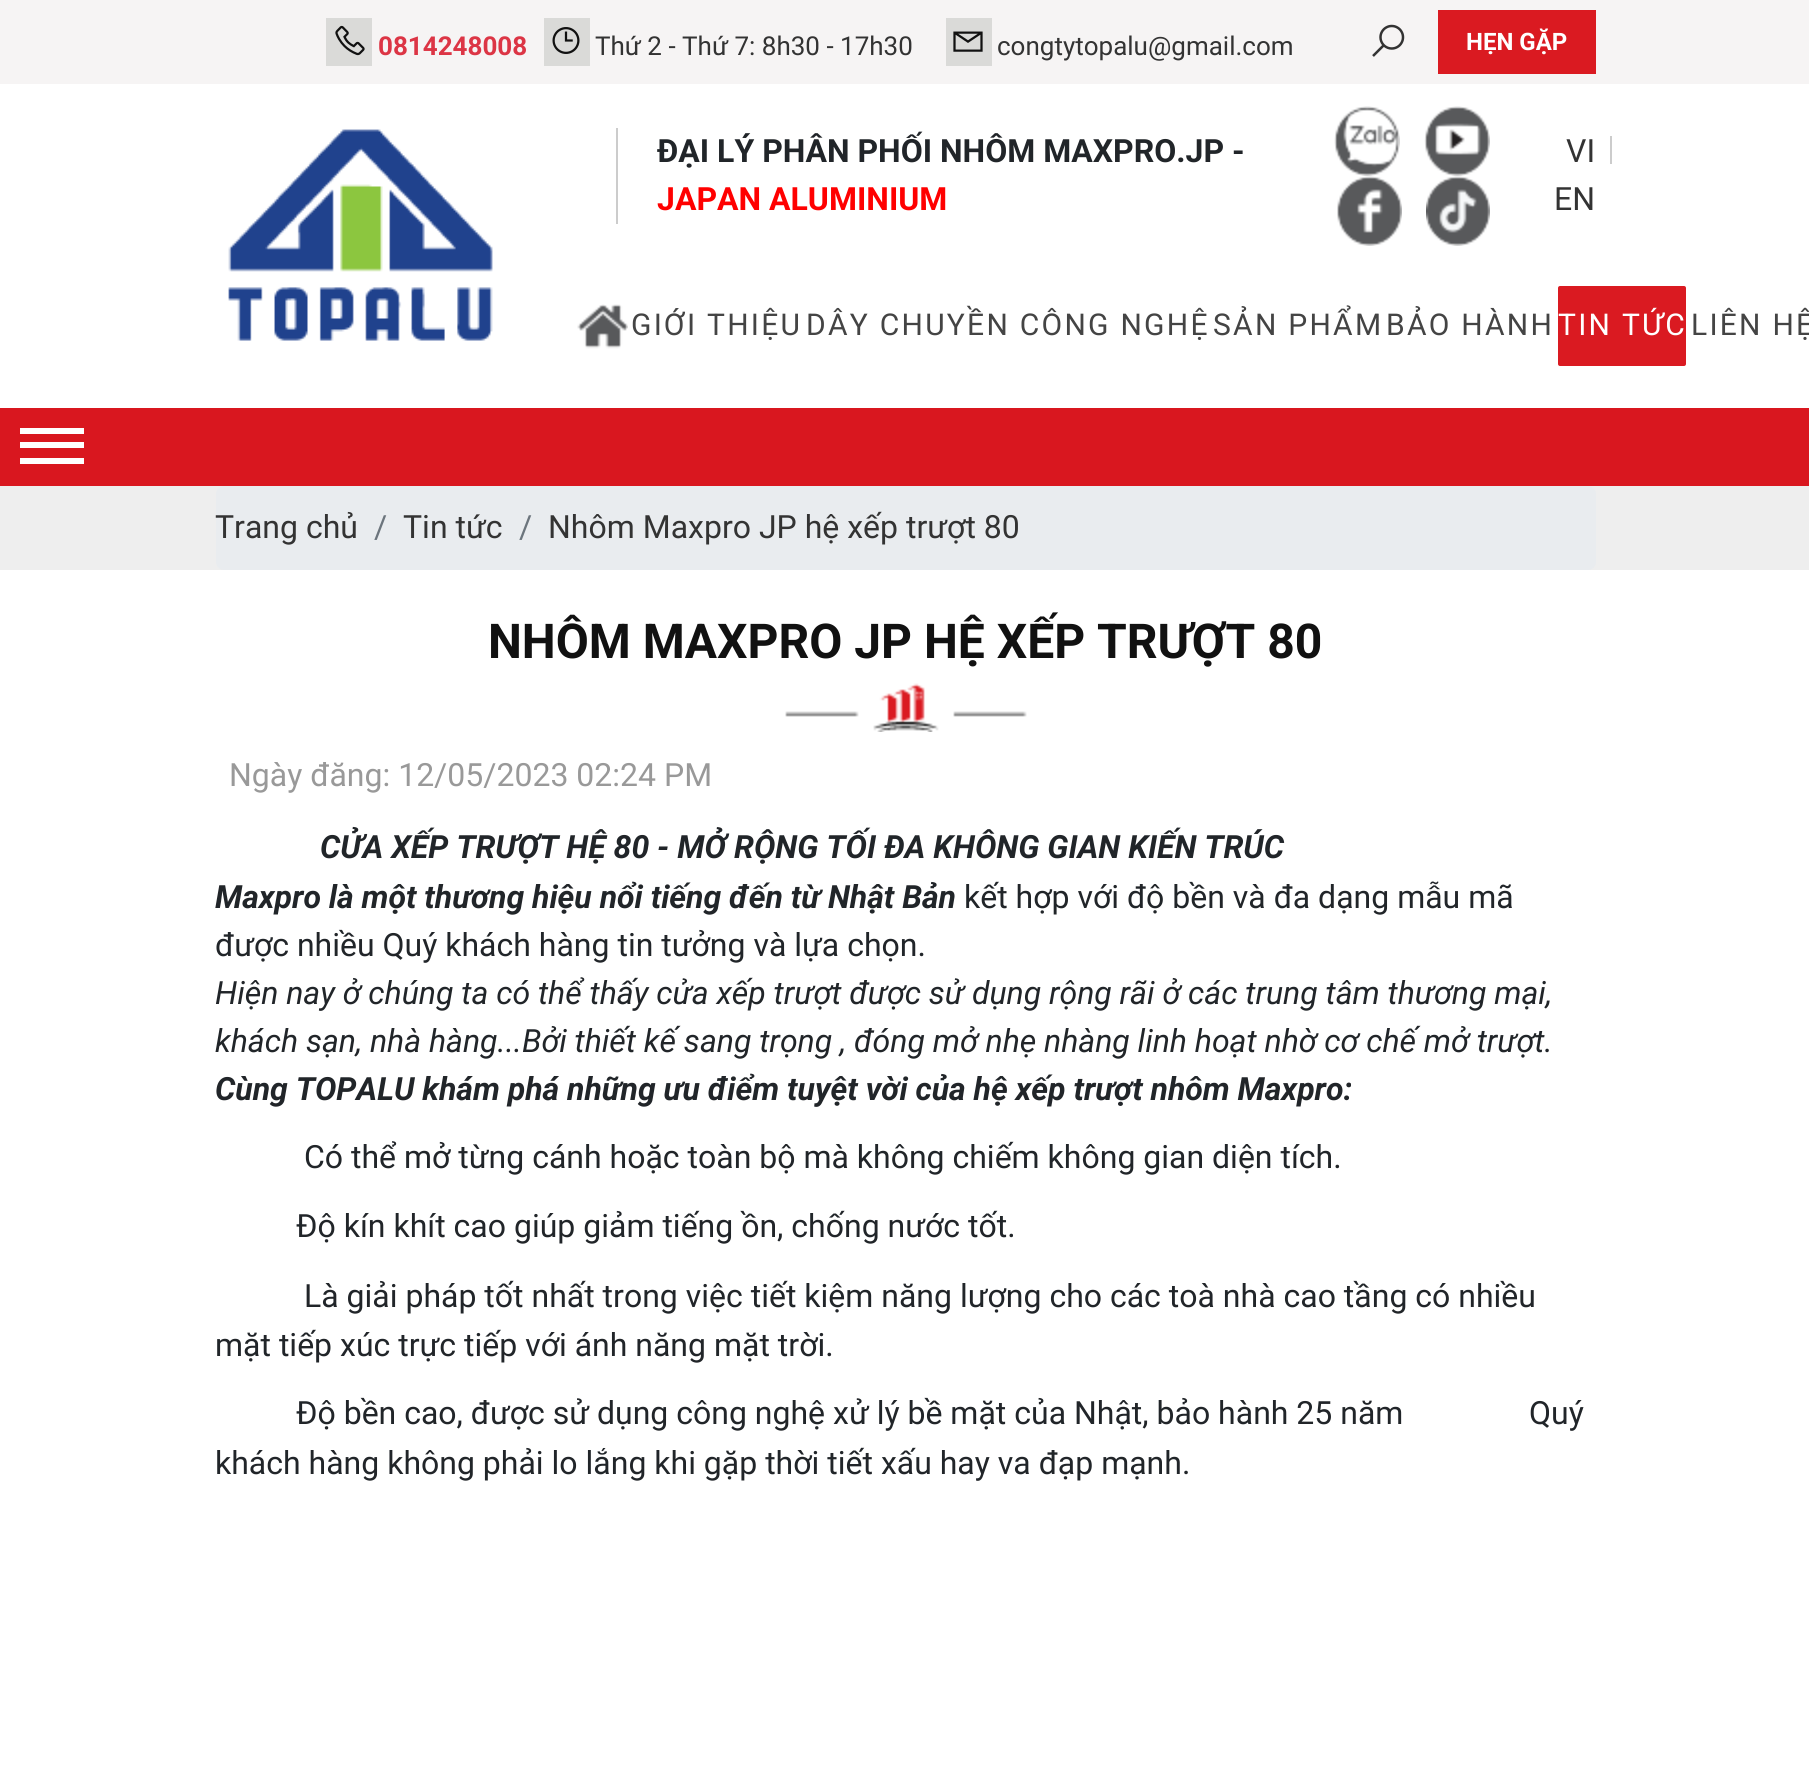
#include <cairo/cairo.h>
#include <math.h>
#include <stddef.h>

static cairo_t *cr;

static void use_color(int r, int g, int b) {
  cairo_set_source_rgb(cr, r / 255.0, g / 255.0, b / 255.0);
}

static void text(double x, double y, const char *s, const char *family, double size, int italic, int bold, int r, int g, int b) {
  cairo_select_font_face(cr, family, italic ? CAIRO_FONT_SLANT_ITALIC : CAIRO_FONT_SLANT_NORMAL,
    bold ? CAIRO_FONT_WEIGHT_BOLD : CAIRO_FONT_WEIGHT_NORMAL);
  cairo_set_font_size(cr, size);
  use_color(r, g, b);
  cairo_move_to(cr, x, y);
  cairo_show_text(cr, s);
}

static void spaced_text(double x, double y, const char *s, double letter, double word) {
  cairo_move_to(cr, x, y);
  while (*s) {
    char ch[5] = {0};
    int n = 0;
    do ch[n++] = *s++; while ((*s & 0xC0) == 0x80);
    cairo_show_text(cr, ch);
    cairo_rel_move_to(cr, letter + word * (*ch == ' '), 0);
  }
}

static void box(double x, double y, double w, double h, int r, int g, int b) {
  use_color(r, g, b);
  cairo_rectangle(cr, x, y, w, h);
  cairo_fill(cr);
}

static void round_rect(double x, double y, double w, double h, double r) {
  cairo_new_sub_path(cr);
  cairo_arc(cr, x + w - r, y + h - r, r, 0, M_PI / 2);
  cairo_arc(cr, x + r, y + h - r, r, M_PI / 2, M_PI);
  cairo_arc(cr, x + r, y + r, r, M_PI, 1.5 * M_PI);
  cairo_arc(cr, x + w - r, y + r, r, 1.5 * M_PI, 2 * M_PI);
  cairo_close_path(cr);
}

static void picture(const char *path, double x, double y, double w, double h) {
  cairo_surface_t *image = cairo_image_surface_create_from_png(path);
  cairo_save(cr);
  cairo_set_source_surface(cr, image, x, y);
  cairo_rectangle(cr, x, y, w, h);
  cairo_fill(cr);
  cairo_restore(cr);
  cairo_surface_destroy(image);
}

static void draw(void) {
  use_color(255, 255, 255);
  cairo_paint(cr);
  box(0, 0, 1809, 84, 246, 244, 244);
  box(326, 18, 46, 48, 218, 218, 216);
  picture("img_01.png", 335, 25, 30, 31);
  box(544, 18, 46, 48, 218, 218, 216);
  picture("img_02.png", 552, 27, 28, 27);
  box(946, 18, 46, 48, 218, 218, 216);
  picture("img_03.png", 953, 31, 30, 21);
  picture("img_04.png", 1372, 24, 33, 33);
  box(1438, 10, 158, 64, 218, 26, 33);
  picture("img_05.png", 228, 129, 265, 212);
  box(616, 128, 2, 96, 204, 204, 204);
  picture("img_06.png", 1334, 106, 66, 70);
  picture("img_07.png", 1424, 106, 66, 70);
  picture("img_08.png", 1337, 176, 65, 70);
  picture("img_09.png", 1426, 176, 64, 70);
  box(1610, 136, 2, 28, 204, 204, 204);
  picture("img_10.png", 577, 304, 51, 45);
  use_color(218, 26, 33);
  round_rect(1558, 286, 128, 80, 2);
  cairo_fill(cr);
  box(0, 408, 1809, 78, 217, 23, 31);
  box(20, 428, 64, 6, 255, 255, 255);
  box(20, 442, 64, 6, 255, 255, 255);
  box(20, 458, 64, 6, 255, 255, 255);
  box(0, 486, 1809, 84, 238, 238, 238);
  use_color(233, 236, 239);
  round_rect(216, 486, 1380, 84, 8);
  cairo_fill(cr);
  picture("img_11.png", 785, 683, 242, 49);
  text(378, 55, "0814248008", "Roboto", 26, 0, 1, 220, 53, 69);
  text(595, 55, "Thứ 2 - Thứ 7: 8h30 - 17h30", "Roboto", 26, 0, 0, 51, 51, 51);
  text(997, 55, "congtytopalu@gmail.com", "Roboto", 26, 0, 0, 51, 51, 51);
  text(1466, 50, "HẸN GẶP", "Roboto", 24, 0, 1, 255, 255, 255);
  text(657, 162, "ĐẠI LÝ PHÂN PHỐI NHÔM MAXPRO.JP -", "Roboto", 32, 0, 1, 33, 37, 41);
  text(657, 210, "JAPAN ALUMINIUM", "Roboto", 32, 0, 1, 255, 0, 0);
  text(1566, 162, "VI", "Roboto", 32, 0, 0, 51, 51, 51);
  text(1554, 210, "EN", "Roboto", 32, 0, 0, 51, 51, 51);
  cairo_set_font_size(cr, 30);
  use_color(68, 68, 68);
  spaced_text(631, 335, "GIỚI THIỆU", 2.25, 0);
  spaced_text(806, 335, "DÂY CHUYỀN CÔNG NGHỆ", 2.25, 0);
  spaced_text(1213, 335, "SẢN PHẨM", 2.25, 0);
  spaced_text(1386, 335, "BẢO HÀNH", 2.25, 0);
  use_color(255, 255, 255);
  spaced_text(1558, 335, "TIN TỨC", 2.25, 0);
  use_color(68, 68, 68);
  spaced_text(1691, 335, "LIÊN HỆ", 2.25, 0);
  text(215, 538, "Trang chủ", "Roboto", 32, 0, 0, 51, 51, 51);
  text(374, 538, "/", "Roboto", 32, 0, 0, 108, 117, 125);
  text(403, 538, "Tin tức", "Roboto", 32, 0, 0, 51, 51, 51);
  text(519, 538, "/", "Roboto", 32, 0, 0, 108, 117, 125);
  text(548, 538, "Nhôm Maxpro JP hệ xếp trượt 80", "Roboto", 32, 0, 0, 51, 51, 51);
  text(488, 658, "NHÔM MAXPRO JP HỆ XẾP TRƯỢT 80", "Roboto", 48, 0, 1, 17, 17, 17);
  text(229, 786, "Ngày đăng: 12/05/2023 02:24 PM", "Roboto", 32, 0, 0, 153, 153, 153);
  text(320, 858, "CỬA XẾP TRƯỢT HỆ 80 - MỞ RỘNG TỐI ĐA KHÔNG GIAN KIẾN TRÚC", "Roboto", 32, 1, 1, 33, 37, 41);
  text(215, 908, "Maxpro là một thương hiệu nổi tiếng đến từ Nhật Bản", "Roboto", 32, 1, 1, 33, 37, 41);
  text(964, 908, "kết hợp với độ bền và đa dạng mẫu mã", "Roboto", 32, 0, 0, 33, 37, 41);
  text(215, 956, "được nhiều Quý khách hàng tin tưởng và lựa chọn.", "Roboto", 32, 0, 0, 33, 37, 41);
  text(215, 1004, "Hiện nay ở chúng ta có thể thấy cửa xếp trượt được sử dụng rộng rãi ở các trung tâm thương mại,", "Roboto", 32, 1, 0, 33, 37, 41);
  text(215, 1052, "khách sạn, nhà hàng...Bởi thiết kế sang trọng , đóng mở nhẹ nhàng linh hoạt nhờ cơ chế mở trượt.", "Roboto", 32, 1, 0, 33, 37, 41);
  text(215, 1100, "Cùng TOPALU khám phá những ưu điểm tuyệt vời của hệ xếp trượt nhôm Maxpro:", "Roboto", 32, 1, 1, 33, 37, 41);
  text(304, 1168, "Có thể mở từng cánh hoặc toàn bộ mà không chiếm không gian diện tích.", "Roboto", 32, 0, 0, 33, 37, 41);
  text(296, 1237, "Độ kín khít cao giúp giảm tiếng ồn, chống nước tốt.", "Roboto", 32, 0, 0, 33, 37, 41);
  text(304, 1307, "Là giải pháp tốt nhất trong việc tiết kiệm năng lượng cho các toà nhà cao tầng có nhiều", "Roboto", 32, 0, 0, 33, 37, 41);
  text(215, 1356, "mặt tiếp xúc trực tiếp với ánh năng mặt trời.", "Roboto", 32, 0, 0, 33, 37, 41);
  text(296, 1424, "Độ bền cao, được sử dụng công nghệ xử lý bề mặt của Nhật, bảo hành 25 năm", "Roboto", 32, 0, 0, 33, 37, 41);
  text(1529, 1424, "Quý", "Roboto", 32, 0, 0, 33, 37, 41);
  text(215, 1474, "khách hàng không phải lo lắng khi gặp thời tiết xấu hay va đạp mạnh.", "Roboto", 32, 0, 0, 33, 37, 41);
}

int main(void) {
  cairo_surface_t *surface = cairo_image_surface_create(CAIRO_FORMAT_RGB24, 1809, 1780);
  cr = cairo_create(surface);
  cairo_font_options_t *options = cairo_font_options_create();
  cairo_font_options_set_hint_metrics(options, CAIRO_HINT_METRICS_OFF);
  cairo_font_options_set_hint_style(options, CAIRO_HINT_STYLE_NONE);
  cairo_set_font_options(cr, options);
  cairo_set_miter_limit(cr, 4);
  draw();
  cairo_surface_write_to_png(surface, "out.png");
  cairo_font_options_destroy(options);
  cairo_destroy(cr);
  cairo_surface_destroy(surface);
  return 0;
}
